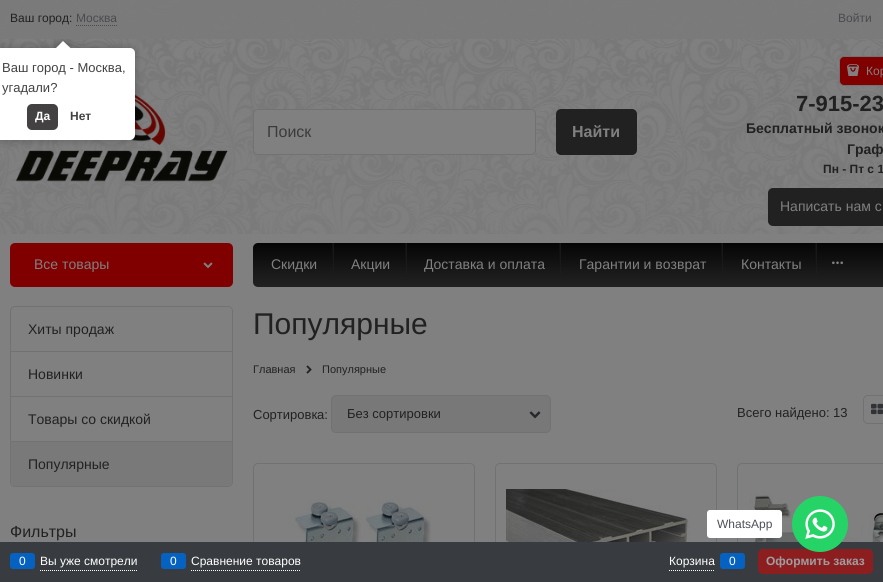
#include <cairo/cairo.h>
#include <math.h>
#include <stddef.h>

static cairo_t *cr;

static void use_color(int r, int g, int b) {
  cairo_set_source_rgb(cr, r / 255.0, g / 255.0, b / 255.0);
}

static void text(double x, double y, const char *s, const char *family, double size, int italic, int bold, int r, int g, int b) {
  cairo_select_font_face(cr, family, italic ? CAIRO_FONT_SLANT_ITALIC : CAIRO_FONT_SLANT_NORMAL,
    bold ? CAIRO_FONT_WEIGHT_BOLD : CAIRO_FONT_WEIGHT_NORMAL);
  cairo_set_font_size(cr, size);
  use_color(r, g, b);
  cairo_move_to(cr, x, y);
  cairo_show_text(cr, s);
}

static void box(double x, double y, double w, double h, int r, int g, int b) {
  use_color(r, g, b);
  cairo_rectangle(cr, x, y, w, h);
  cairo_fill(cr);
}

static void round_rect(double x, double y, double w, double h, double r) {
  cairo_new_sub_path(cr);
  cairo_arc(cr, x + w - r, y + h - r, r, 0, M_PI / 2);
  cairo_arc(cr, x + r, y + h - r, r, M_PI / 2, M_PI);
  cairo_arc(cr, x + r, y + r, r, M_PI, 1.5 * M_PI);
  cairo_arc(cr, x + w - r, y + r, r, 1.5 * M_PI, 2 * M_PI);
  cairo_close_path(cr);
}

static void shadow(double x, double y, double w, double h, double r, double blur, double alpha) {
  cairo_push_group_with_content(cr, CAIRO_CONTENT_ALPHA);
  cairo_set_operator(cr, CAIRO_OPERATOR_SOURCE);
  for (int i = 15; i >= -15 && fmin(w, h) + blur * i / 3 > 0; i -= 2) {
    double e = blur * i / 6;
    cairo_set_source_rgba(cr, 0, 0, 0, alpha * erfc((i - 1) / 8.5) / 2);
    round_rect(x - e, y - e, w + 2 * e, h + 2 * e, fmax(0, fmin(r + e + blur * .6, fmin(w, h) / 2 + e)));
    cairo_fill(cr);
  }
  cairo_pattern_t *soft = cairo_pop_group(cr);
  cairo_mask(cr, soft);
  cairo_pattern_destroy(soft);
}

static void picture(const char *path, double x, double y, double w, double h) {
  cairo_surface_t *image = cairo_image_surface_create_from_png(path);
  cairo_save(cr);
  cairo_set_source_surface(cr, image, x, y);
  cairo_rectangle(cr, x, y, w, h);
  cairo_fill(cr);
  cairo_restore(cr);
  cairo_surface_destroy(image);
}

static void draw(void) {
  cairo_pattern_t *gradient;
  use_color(255, 255, 255);
  cairo_paint(cr);
  picture("img_01.png", 0, 0, 883, 239);
  cairo_set_source_rgba(cr, 0.478, 0.478, 0.478, 0.9);
  cairo_rectangle(cr, 0, 0, 883, 39);
  cairo_fill(cr);
  cairo_new_path(cr);
  cairo_move_to(cr, 76, 25.5);
  cairo_line_to(cr, 117, 25.5);
  use_color(74, 75, 78);
  cairo_set_line_width(cr, 1);
  cairo_set_dash(cr, (double[]){1, 1}, 2, 0);
  cairo_stroke(cr);
  picture("img_02.png", 16, 94, 212, 88);
  use_color(128, 128, 128);
  round_rect(253.5, 109.5, 282, 45, 4.5);
  cairo_fill_preserve(cr);
  use_color(113, 114, 114);
  cairo_set_dash(cr, NULL, 0, 0);
  cairo_stroke(cr);
  use_color(34, 33, 33);
  round_rect(556, 109, 81, 46, 5);
  cairo_fill(cr);
  use_color(128, 0, 0);
  round_rect(839.5, 56.5, 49, 29, 4.5);
  cairo_fill_preserve(cr);
  use_color(113, 114, 114);
  cairo_stroke(cr);
  picture("img_03.png", 847, 64, 12, 12);
  use_color(34, 33, 33);
  round_rect(768, 188, 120, 38, 5);
  cairo_fill(cr);
  use_color(128, 128, 128);
  round_rect(0, 234, 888, 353, 5);
  cairo_fill(cr);
  use_color(128, 0, 0);
  round_rect(10, 243, 223, 44, 5);
  cairo_fill(cr);
  picture("img_04.png", 203, 262, 10, 7);
  gradient = cairo_pattern_create_linear(607, 243, 607, 287);
  cairo_pattern_add_color_stop_rgba(gradient, 0, 0.016, 0.016, 0.016, 1);
  cairo_pattern_add_color_stop_rgba(gradient, 0.08, 0.031, 0.031, 0.031, 1);
  cairo_pattern_add_color_stop_rgba(gradient, 0.31, 0.055, 0.055, 0.055, 1);
  cairo_pattern_add_color_stop_rgba(gradient, 0.72, 0.11, 0.106, 0.106, 1);
  cairo_pattern_add_color_stop_rgba(gradient, 1, 0.133, 0.129, 0.129, 1);
  cairo_set_source(cr, gradient);
  cairo_pattern_destroy(gradient);
  round_rect(253, 243, 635, 44, 5);
  cairo_fill(cr);
  gradient = cairo_pattern_create_linear(334, 243, 334, 287);
  cairo_pattern_add_color_stop_rgba(gradient, 0, 0.502, 0.502, 0.502, 0.14);
  cairo_pattern_add_color_stop_rgba(gradient, 0.72, 0.502, 0.502, 0.502, 0.02);
  cairo_pattern_add_color_stop_rgba(gradient, 1, 0.502, 0.502, 0.502, 0);
  cairo_set_source(cr, gradient);
  cairo_pattern_destroy(gradient);
  cairo_rectangle(cr, 333, 243, 1, 31);
  cairo_fill(cr);
  gradient = cairo_pattern_create_linear(333, 243, 333, 287);
  cairo_pattern_add_color_stop_rgba(gradient, 0, 0.114, 0.114, 0.114, 0.39);
  cairo_pattern_add_color_stop_rgba(gradient, 0.17, 0.114, 0.114, 0.114, 0.33);
  cairo_pattern_add_color_stop_rgba(gradient, 0.61, 0.114, 0.114, 0.114, 0.12);
  cairo_pattern_add_color_stop_rgba(gradient, 0.96, 0.114, 0.114, 0.114, 0.01);
  cairo_pattern_add_color_stop_rgba(gradient, 0.98, 0.502, 0.502, 0.502, 0.01);
  cairo_pattern_add_color_stop_rgba(gradient, 1, 0.502, 0.502, 0.502, 0);
  cairo_set_source(cr, gradient);
  cairo_pattern_destroy(gradient);
  cairo_rectangle(cr, 332, 243, 1, 17);
  cairo_fill(cr);
  gradient = cairo_pattern_create_linear(407, 243, 407, 287);
  cairo_pattern_add_color_stop_rgba(gradient, 0, 0.502, 0.502, 0.502, 0.14);
  cairo_pattern_add_color_stop_rgba(gradient, 0.72, 0.502, 0.502, 0.502, 0.02);
  cairo_pattern_add_color_stop_rgba(gradient, 1, 0.502, 0.502, 0.502, 0);
  cairo_set_source(cr, gradient);
  cairo_pattern_destroy(gradient);
  cairo_rectangle(cr, 406, 243, 1, 31);
  cairo_fill(cr);
  gradient = cairo_pattern_create_linear(406, 243, 406, 287);
  cairo_pattern_add_color_stop_rgba(gradient, 0, 0.114, 0.114, 0.114, 0.39);
  cairo_pattern_add_color_stop_rgba(gradient, 0.17, 0.114, 0.114, 0.114, 0.33);
  cairo_pattern_add_color_stop_rgba(gradient, 0.61, 0.114, 0.114, 0.114, 0.12);
  cairo_pattern_add_color_stop_rgba(gradient, 0.96, 0.114, 0.114, 0.114, 0.01);
  cairo_pattern_add_color_stop_rgba(gradient, 0.98, 0.502, 0.502, 0.502, 0.01);
  cairo_pattern_add_color_stop_rgba(gradient, 1, 0.502, 0.502, 0.502, 0);
  cairo_set_source(cr, gradient);
  cairo_pattern_destroy(gradient);
  cairo_rectangle(cr, 405, 243, 1, 17);
  cairo_fill(cr);
  gradient = cairo_pattern_create_linear(561, 243, 561, 287);
  cairo_pattern_add_color_stop_rgba(gradient, 0, 0.502, 0.502, 0.502, 0.14);
  cairo_pattern_add_color_stop_rgba(gradient, 0.72, 0.502, 0.502, 0.502, 0.02);
  cairo_pattern_add_color_stop_rgba(gradient, 1, 0.502, 0.502, 0.502, 0);
  cairo_set_source(cr, gradient);
  cairo_pattern_destroy(gradient);
  cairo_rectangle(cr, 560, 243, 1, 31);
  cairo_fill(cr);
  gradient = cairo_pattern_create_linear(560, 243, 560, 287);
  cairo_pattern_add_color_stop_rgba(gradient, 0, 0.114, 0.114, 0.114, 0.39);
  cairo_pattern_add_color_stop_rgba(gradient, 0.17, 0.114, 0.114, 0.114, 0.33);
  cairo_pattern_add_color_stop_rgba(gradient, 0.61, 0.114, 0.114, 0.114, 0.12);
  cairo_pattern_add_color_stop_rgba(gradient, 0.96, 0.114, 0.114, 0.114, 0.01);
  cairo_pattern_add_color_stop_rgba(gradient, 0.98, 0.502, 0.502, 0.502, 0.01);
  cairo_pattern_add_color_stop_rgba(gradient, 1, 0.502, 0.502, 0.502, 0);
  cairo_set_source(cr, gradient);
  cairo_pattern_destroy(gradient);
  cairo_rectangle(cr, 559, 243, 1, 17);
  cairo_fill(cr);
  gradient = cairo_pattern_create_linear(723, 243, 723, 287);
  cairo_pattern_add_color_stop_rgba(gradient, 0, 0.502, 0.502, 0.502, 0.14);
  cairo_pattern_add_color_stop_rgba(gradient, 0.72, 0.502, 0.502, 0.502, 0.02);
  cairo_pattern_add_color_stop_rgba(gradient, 1, 0.502, 0.502, 0.502, 0);
  cairo_set_source(cr, gradient);
  cairo_pattern_destroy(gradient);
  cairo_rectangle(cr, 722, 243, 1, 31);
  cairo_fill(cr);
  gradient = cairo_pattern_create_linear(722, 243, 722, 287);
  cairo_pattern_add_color_stop_rgba(gradient, 0, 0.114, 0.114, 0.114, 0.39);
  cairo_pattern_add_color_stop_rgba(gradient, 0.17, 0.114, 0.114, 0.114, 0.33);
  cairo_pattern_add_color_stop_rgba(gradient, 0.61, 0.114, 0.114, 0.114, 0.12);
  cairo_pattern_add_color_stop_rgba(gradient, 0.96, 0.114, 0.114, 0.114, 0.01);
  cairo_pattern_add_color_stop_rgba(gradient, 0.98, 0.502, 0.502, 0.502, 0.01);
  cairo_pattern_add_color_stop_rgba(gradient, 1, 0.502, 0.502, 0.502, 0);
  cairo_set_source(cr, gradient);
  cairo_pattern_destroy(gradient);
  cairo_rectangle(cr, 721, 243, 1, 17);
  cairo_fill(cr);
  gradient = cairo_pattern_create_linear(817, 243, 817, 287);
  cairo_pattern_add_color_stop_rgba(gradient, 0, 0.502, 0.502, 0.502, 0.14);
  cairo_pattern_add_color_stop_rgba(gradient, 0.72, 0.502, 0.502, 0.502, 0.02);
  cairo_pattern_add_color_stop_rgba(gradient, 1, 0.502, 0.502, 0.502, 0);
  cairo_set_source(cr, gradient);
  cairo_pattern_destroy(gradient);
  cairo_rectangle(cr, 816, 243, 1, 31);
  cairo_fill(cr);
  gradient = cairo_pattern_create_linear(816, 243, 816, 287);
  cairo_pattern_add_color_stop_rgba(gradient, 0, 0.114, 0.114, 0.114, 0.39);
  cairo_pattern_add_color_stop_rgba(gradient, 0.17, 0.114, 0.114, 0.114, 0.33);
  cairo_pattern_add_color_stop_rgba(gradient, 0.61, 0.114, 0.114, 0.114, 0.12);
  cairo_pattern_add_color_stop_rgba(gradient, 0.96, 0.114, 0.114, 0.114, 0.01);
  cairo_pattern_add_color_stop_rgba(gradient, 0.98, 0.502, 0.502, 0.502, 0.01);
  cairo_pattern_add_color_stop_rgba(gradient, 1, 0.502, 0.502, 0.502, 0);
  cairo_set_source(cr, gradient);
  cairo_pattern_destroy(gradient);
  cairo_rectangle(cr, 815, 243, 1, 17);
  cairo_fill(cr);
  picture("img_05.png", 832, 261, 11, 4);
  round_rect(10.5, 306.5, 222, 180, 4.5);
  use_color(113, 114, 114);
  cairo_stroke(cr);
  box(11, 351, 221, 1, 113, 114, 114);
  box(11, 396, 221, 1, 113, 114, 114);
  box(11, 441, 221, 1, 113, 114, 114);
  use_color(121, 121, 121);
  cairo_new_path(cr);
  cairo_move_to(cr, 11, 442);
  cairo_line_to(cr, 232, 442);
  cairo_line_to(cr, 232, 481);
  cairo_curve_to(cr, 232, 484, 230, 486, 227, 486);
  cairo_line_to(cr, 16, 486);
  cairo_curve_to(cr, 13, 486, 11, 484, 11, 481);
  cairo_close_path(cr);
  cairo_fill(cr);
  picture("img_06.png", 306, 365, 6, 9);
  use_color(120, 120, 120);
  round_rect(331.5, 395.5, 219, 37, 4.5);
  cairo_fill_preserve(cr);
  use_color(113, 114, 114);
  cairo_stroke(cr);
  picture("img_07.png", 529, 411, 12, 8);
  round_rect(863.5, 395.5, 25, 28, 4.5);
  cairo_stroke(cr);
  picture("img_08.png", 871, 403, 12, 12);
  round_rect(253.5, 463.5, 221, 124, 4.5);
  cairo_stroke(cr);
  picture("img_09.png", 289, 499, 142, 43);
  round_rect(495.5, 463.5, 221, 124, 4.5);
  cairo_stroke(cr);
  picture("img_10.png", 506, 489, 184, 53);
  round_rect(737.5, 463.5, 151, 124, 4.5);
  cairo_stroke(cr);
  picture("img_11.png", 749, 493, 134, 49);
  box(0, 542, 883, 40, 56, 60, 64);
  cairo_new_path(cr);
  cairo_move_to(cr, 40, 570.5);
  cairo_line_to(cr, 137, 570.5);
  use_color(255, 255, 255);
  cairo_set_dash(cr, (double[]){1, 1}, 2, 0);
  cairo_stroke(cr);
  use_color(6, 98, 193);
  round_rect(10, 553, 25, 16, 3);
  cairo_fill(cr);
  cairo_new_path(cr);
  cairo_move_to(cr, 191, 570.5);
  cairo_line_to(cr, 301, 570.5);
  use_color(255, 255, 255);
  cairo_stroke(cr);
  use_color(6, 98, 193);
  round_rect(161, 553, 25, 16, 3);
  cairo_fill(cr);
  cairo_new_path(cr);
  cairo_move_to(cr, 669, 570.5);
  cairo_line_to(cr, 715, 570.5);
  use_color(255, 255, 255);
  cairo_stroke(cr);
  use_color(6, 98, 193);
  round_rect(720, 553, 25, 16, 3);
  cairo_fill(cr);
  use_color(141, 30, 32);
  round_rect(758, 549, 115, 25, 5);
  cairo_fill(cr);
  use_color(0, 0, 0);
  shadow(-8, 48, 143, 92, 5, 4.5, 0.25);
  use_color(255, 255, 255);
  round_rect(-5, 48, 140, 92, 5);
  cairo_fill(cr);
  cairo_save(cr);
  cairo_rectangle(cr, 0, 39, 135, 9);
  cairo_clip(cr);
  use_color(0, 0, 0);
  shadow(58, 43, 10, 10, 0, 4.5, 0.25);
  cairo_restore(cr);
  cairo_save(cr);
  cairo_rectangle(cr, 0, 39, 135, 9);
  cairo_clip(cr);
  cairo_new_path(cr);
  cairo_move_to(cr, 63, 41);
  cairo_line_to(cr, 70.5, 48);
  cairo_line_to(cr, 63, 55);
  cairo_line_to(cr, 56, 48);
  cairo_close_path(cr);
  cairo_fill(cr);
  cairo_restore(cr);
  use_color(67, 65, 66);
  round_rect(27, 104, 31, 26, 5);
  cairo_fill(cr);
  use_color(255, 255, 255);
  round_rect(707, 510, 75, 28, 3);
  cairo_fill(cr);
  use_color(38, 211, 103);
  cairo_arc(cr, 820, 524, 28, 0, 2 * M_PI);
  cairo_fill(cr);
  picture("img_12.png", 805, 509, 30, 30);
  text(10, 22, "Ваш город:", "Liberation Sans", 12, 0, 0, 34, 33, 33);
  text(76, 22, "Москва", "Liberation Sans", 12, 0, 0, 74, 75, 78);
  text(838, 22, "Войти", "Liberation Sans", 12, 0, 0, 74, 75, 78);
  text(267, 137, "Поиск", "Liberation Sans", 16, 0, 0, 59, 59, 59);
  text(572, 137, "Найти", "Liberation Sans", 16, 0, 1, 128, 128, 128);
  text(866, 75, "Кор", "Liberation Sans", 12, 0, 0, 128, 128, 128);
  text(796, 111, "7-915-23", "Liberation Sans", 22, 0, 1, 34, 33, 33);
  text(746, 133, "Бесплатный звонок", "Liberation Sans", 14, 0, 1, 34, 33, 33);
  text(847, 154, "Граф", "Liberation Sans", 14, 0, 1, 34, 33, 33);
  text(823, 173, "Пн - Пт с 1", "Liberation Sans", 12, 0, 1, 34, 33, 33);
  text(780, 211, "Написать нам с", "Liberation Sans", 14, 0, 0, 128, 128, 128);
  text(34, 269, "Все товары", "Liberation Sans", 14, 0, 0, 128, 128, 128);
  text(271, 269, "Скидки", "Liberation Sans", 14, 0, 0, 128, 128, 128);
  text(351, 269, "Акции", "Liberation Sans", 14, 0, 0, 128, 128, 128);
  text(424, 269, "Доставка и оплата", "Liberation Sans", 14, 0, 0, 128, 128, 128);
  text(579, 269, "Гарантии и возврат", "Liberation Sans", 14, 0, 0, 128, 128, 128);
  text(741, 269, "Контакты", "Liberation Sans", 14, 0, 0, 128, 128, 128);
  text(28, 334, "Хиты продаж", "Liberation Sans", 14, 0, 0, 34, 33, 33);
  text(28, 379, "Новинки", "Liberation Sans", 14, 0, 0, 34, 33, 33);
  text(28, 424, "Товары со скидкой", "Liberation Sans", 14, 0, 0, 34, 33, 33);
  text(28, 469, "Популярные", "Liberation Sans", 14, 0, 0, 34, 33, 33);
  text(10, 537, "Фильтры", "Liberation Sans", 16, 0, 0, 34, 33, 33);
  text(253, 334, "Популярные", "Liberation Sans", 30, 0, 0, 34, 33, 33);
  text(253, 373, "Главная", "Liberation Sans", 11, 0, 0, 34, 33, 33);
  text(322, 373, "Популярные", "Liberation Sans", 11, 0, 0, 34, 33, 33);
  text(253, 419, "Сортировка:", "Liberation Sans", 13, 0, 0, 34, 33, 33);
  text(347, 418, "Без сортировки", "Liberation Sans", 13, 0, 0, 34, 33, 33);
  text(737, 417, "Всего найдено: 13", "Liberation Sans", 13, 0, 0, 34, 33, 33);
  text(19, 565, "0", "Liberation Sans", 12, 0, 0, 255, 255, 255);
  text(40, 565, "Вы уже смотрели", "Liberation Sans", 12, 0, 0, 255, 255, 255);
  text(170, 565, "0", "Liberation Sans", 12, 0, 0, 255, 255, 255);
  text(191, 565, "Сравнение товаров", "Liberation Sans", 12, 0, 0, 255, 255, 255);
  text(669, 565, "Корзина", "Liberation Sans", 12, 0, 0, 255, 255, 255);
  text(729, 565, "0", "Liberation Sans", 12, 0, 0, 255, 255, 255);
  text(766, 565, "Оформить заказ", "Liberation Sans", 12, 0, 1, 156, 158, 160);
  text(2, 72, "Ваш город - Москва,", "Liberation Sans", 13, 0, 0, 67, 65, 66);
  text(2, 92, "угадали?", "Liberation Sans", 13, 0, 0, 67, 65, 66);
  text(35, 120, "Да", "Liberation Sans", 12, 0, 1, 255, 255, 255);
  text(70, 120, "Нет", "Liberation Sans", 12, 0, 1, 67, 65, 66);
  text(717, 528, "WhatsApp", "Liberation Sans", 12, 0, 0, 75, 79, 88);
}

int main(void) {
  cairo_surface_t *surface = cairo_image_surface_create(CAIRO_FORMAT_RGB24, 883, 582);
  cr = cairo_create(surface);
  cairo_font_options_t *options = cairo_font_options_create();
  cairo_font_options_set_hint_metrics(options, CAIRO_HINT_METRICS_OFF);
  cairo_font_options_set_hint_style(options, CAIRO_HINT_STYLE_NONE);
  cairo_set_font_options(cr, options);
  cairo_set_miter_limit(cr, 4);
  draw();
  cairo_surface_write_to_png(surface, "out.png");
  cairo_font_options_destroy(options);
  cairo_destroy(cr);
  cairo_surface_destroy(surface);
  return 0;
}
